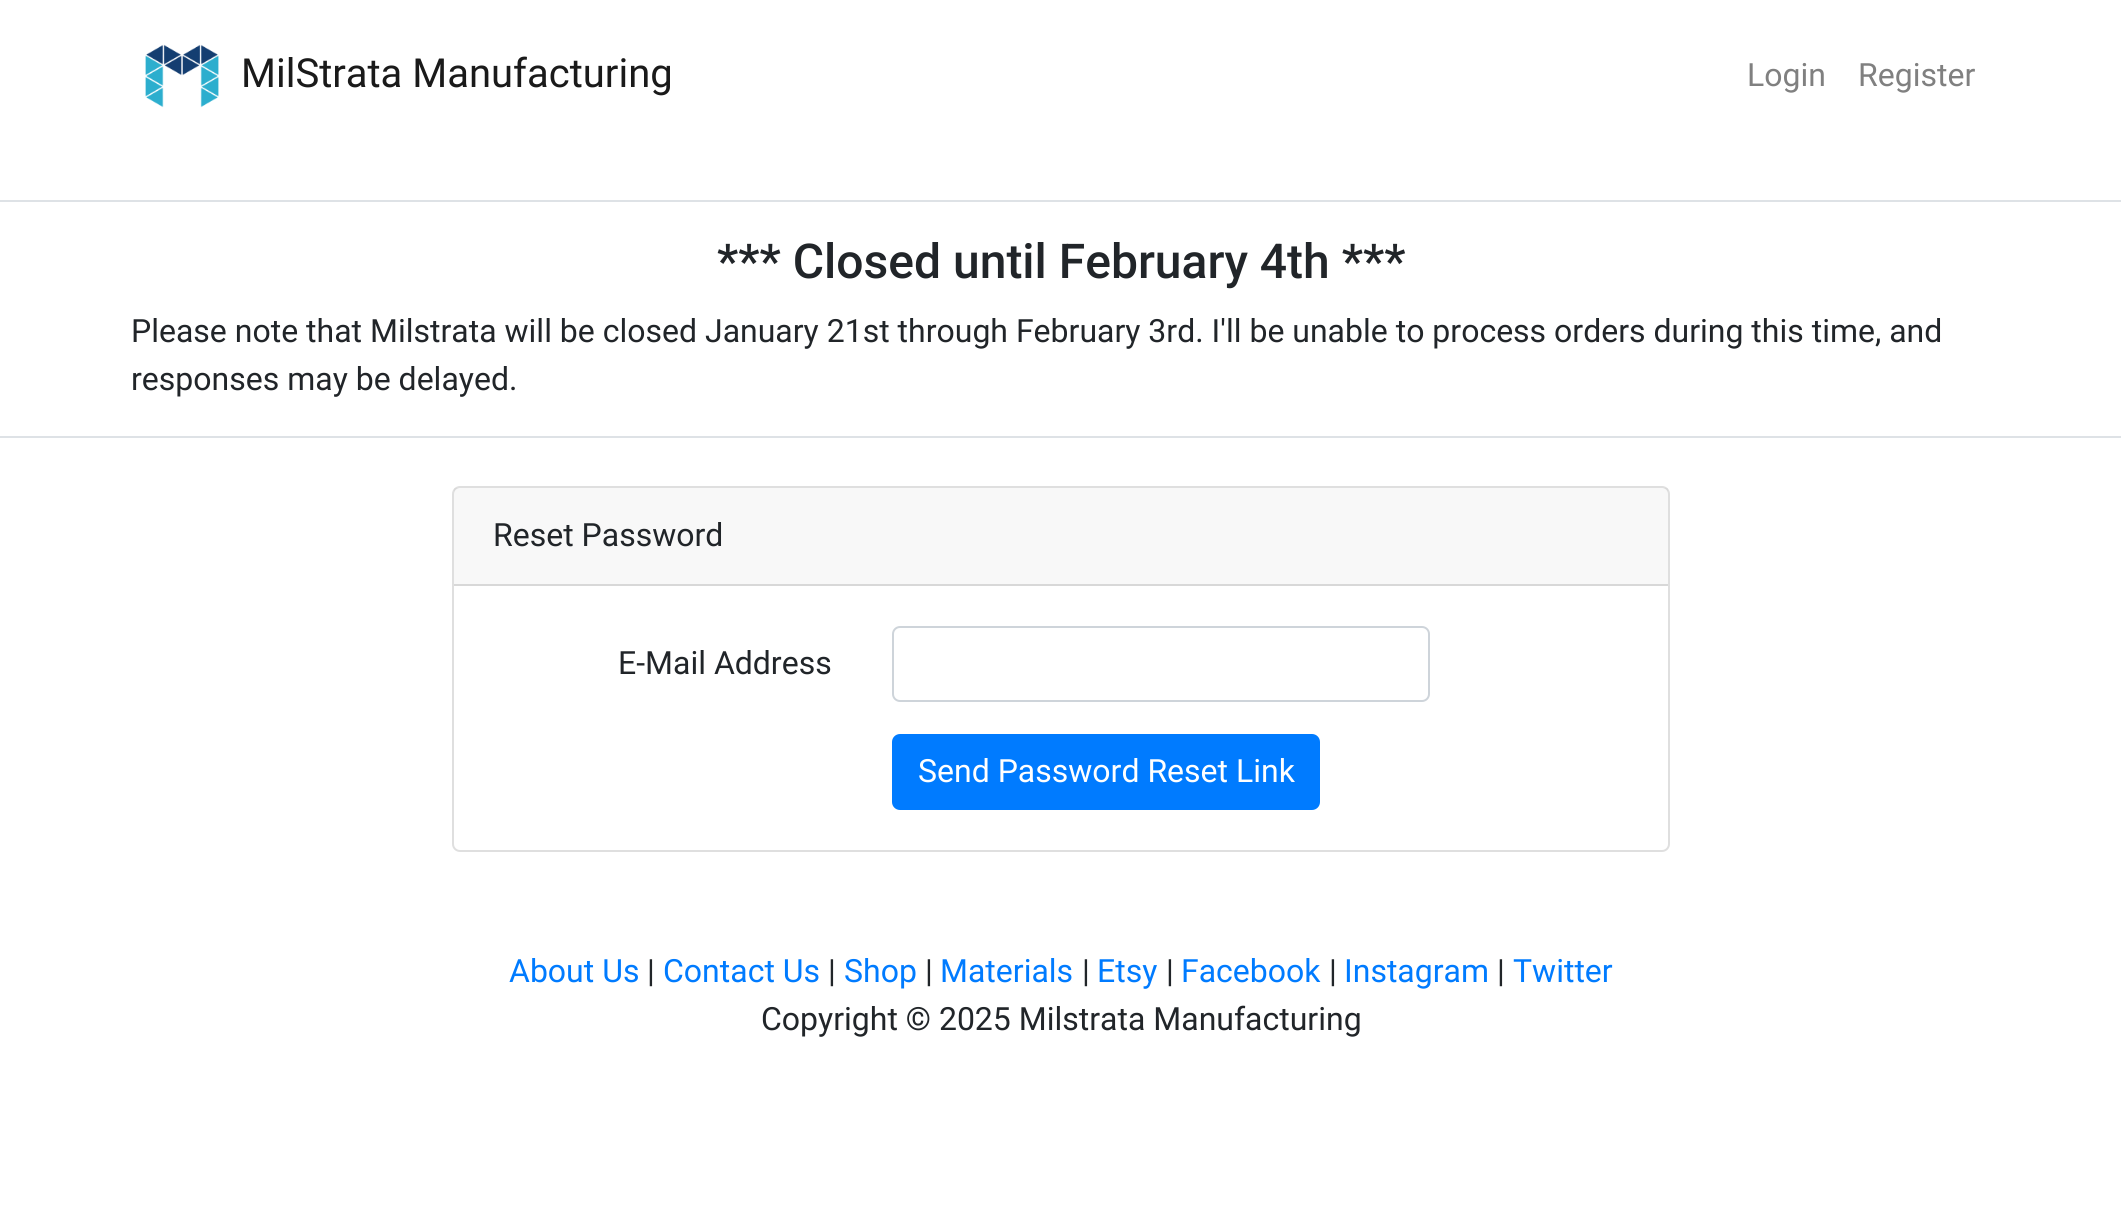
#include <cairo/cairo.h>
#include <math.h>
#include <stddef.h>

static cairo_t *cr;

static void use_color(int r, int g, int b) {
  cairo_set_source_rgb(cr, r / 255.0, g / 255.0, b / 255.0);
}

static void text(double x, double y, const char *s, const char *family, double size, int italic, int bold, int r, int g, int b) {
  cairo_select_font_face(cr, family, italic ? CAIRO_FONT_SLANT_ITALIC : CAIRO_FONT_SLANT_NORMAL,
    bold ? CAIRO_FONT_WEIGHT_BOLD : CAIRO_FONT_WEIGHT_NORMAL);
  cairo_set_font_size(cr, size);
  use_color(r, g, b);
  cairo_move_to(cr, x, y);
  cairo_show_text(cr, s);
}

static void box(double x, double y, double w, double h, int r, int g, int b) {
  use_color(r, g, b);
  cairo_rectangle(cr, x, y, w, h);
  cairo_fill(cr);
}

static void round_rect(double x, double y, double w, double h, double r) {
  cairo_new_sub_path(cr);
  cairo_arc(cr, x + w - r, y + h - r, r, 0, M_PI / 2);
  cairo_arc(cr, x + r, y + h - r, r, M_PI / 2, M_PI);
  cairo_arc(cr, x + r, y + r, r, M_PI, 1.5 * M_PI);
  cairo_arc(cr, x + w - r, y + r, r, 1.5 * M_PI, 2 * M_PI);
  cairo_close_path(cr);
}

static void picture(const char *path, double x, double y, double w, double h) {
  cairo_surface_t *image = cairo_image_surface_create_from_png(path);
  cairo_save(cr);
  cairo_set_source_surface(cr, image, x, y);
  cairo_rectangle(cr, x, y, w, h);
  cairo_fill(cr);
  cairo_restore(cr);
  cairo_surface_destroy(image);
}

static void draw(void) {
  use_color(255, 255, 255);
  cairo_paint(cr);
  picture("img_01.png", 145, 44, 74, 64);
  box(0, 200, 2121, 2, 222, 226, 230);
  box(0, 436, 2121, 2, 222, 226, 230);
  round_rect(453, 487, 1216, 364, 7);
  use_color(223, 223, 223);
  cairo_stroke(cr);
  cairo_set_source_rgba(cr, 0, 0, 0, 0.03);
  cairo_rectangle(cr, 454, 488, 1214, 96);
  cairo_fill(cr);
  box(454, 584, 1214, 2, 216, 216, 216);
  round_rect(893, 627, 536, 74, 7);
  use_color(206, 212, 218);
  cairo_stroke(cr);
  use_color(0, 123, 255);
  round_rect(893, 735, 426, 74, 7);
  cairo_fill_preserve(cr);
  cairo_stroke(cr);
  text(241, 87, "MilStrata Manufacturing", "Roboto", 40, 0, 0, 26, 26, 26);
  text(1747, 86, "Login", "Roboto", 32, 0, 0, 128, 128, 128);
  text(1858, 86, "Register", "Roboto", 32, 0, 0, 128, 128, 128);
  text(717, 278, "*** Closed until February 4th ***", "Roboto Medium", 48, 0, 0, 33, 37, 41);
  text(131, 342, "Please note that Milstrata will be closed January 21st through February 3rd. I'll be unable to process orders during this time, and", "Roboto", 32, 0, 0, 33, 37, 41);
  text(131, 390, "responses may be delayed.", "Roboto", 32, 0, 0, 33, 37, 41);
  text(493, 546, "Reset Password", "Roboto", 32, 0, 0, 33, 37, 41);
  text(618, 674, "E-Mail Address", "Roboto", 32, 0, 0, 33, 37, 41);
  text(918, 782, "Send Password Reset Link", "Roboto", 32, 0, 0, 255, 255, 255);
  text(509, 982, "About Us", "Roboto", 32, 0, 0, 0, 123, 255);
  text(647, 982, "|", "Roboto", 32, 0, 0, 33, 37, 41);
  text(663, 982, "Contact Us", "Roboto", 32, 0, 0, 0, 123, 255);
  text(828, 982, "|", "Roboto", 32, 0, 0, 33, 37, 41);
  text(844, 982, "Shop", "Roboto", 32, 0, 0, 0, 123, 255);
  text(925, 982, "|", "Roboto", 32, 0, 0, 33, 37, 41);
  text(940, 982, "Materials", "Roboto", 32, 0, 0, 0, 123, 255);
  text(1082, 982, "|", "Roboto", 32, 0, 0, 33, 37, 41);
  text(1097, 982, "Etsy", "Roboto", 32, 0, 0, 0, 123, 255);
  text(1166, 982, "|", "Roboto", 32, 0, 0, 33, 37, 41);
  text(1181, 982, "Facebook", "Roboto", 32, 0, 0, 0, 123, 255);
  text(1329, 982, "|", "Roboto", 32, 0, 0, 33, 37, 41);
  text(1344, 982, "Instagram", "Roboto", 32, 0, 0, 0, 123, 255);
  text(1497, 982, "|", "Roboto", 32, 0, 0, 33, 37, 41);
  text(1513, 982, "Twitter", "Roboto", 32, 0, 0, 0, 123, 255);
  text(761, 1030, "Copyright © 2025 Milstrata Manufacturing", "Roboto", 32, 0, 0, 33, 37, 41);
}

int main(void) {
  cairo_surface_t *surface = cairo_image_surface_create(CAIRO_FORMAT_RGB24, 2121, 1228);
  cr = cairo_create(surface);
  cairo_font_options_t *options = cairo_font_options_create();
  cairo_font_options_set_hint_metrics(options, CAIRO_HINT_METRICS_OFF);
  cairo_font_options_set_hint_style(options, CAIRO_HINT_STYLE_NONE);
  cairo_set_font_options(cr, options);
  cairo_set_miter_limit(cr, 4);
  draw();
  cairo_surface_write_to_png(surface, "out.png");
  cairo_font_options_destroy(options);
  cairo_destroy(cr);
  cairo_surface_destroy(surface);
  return 0;
}
